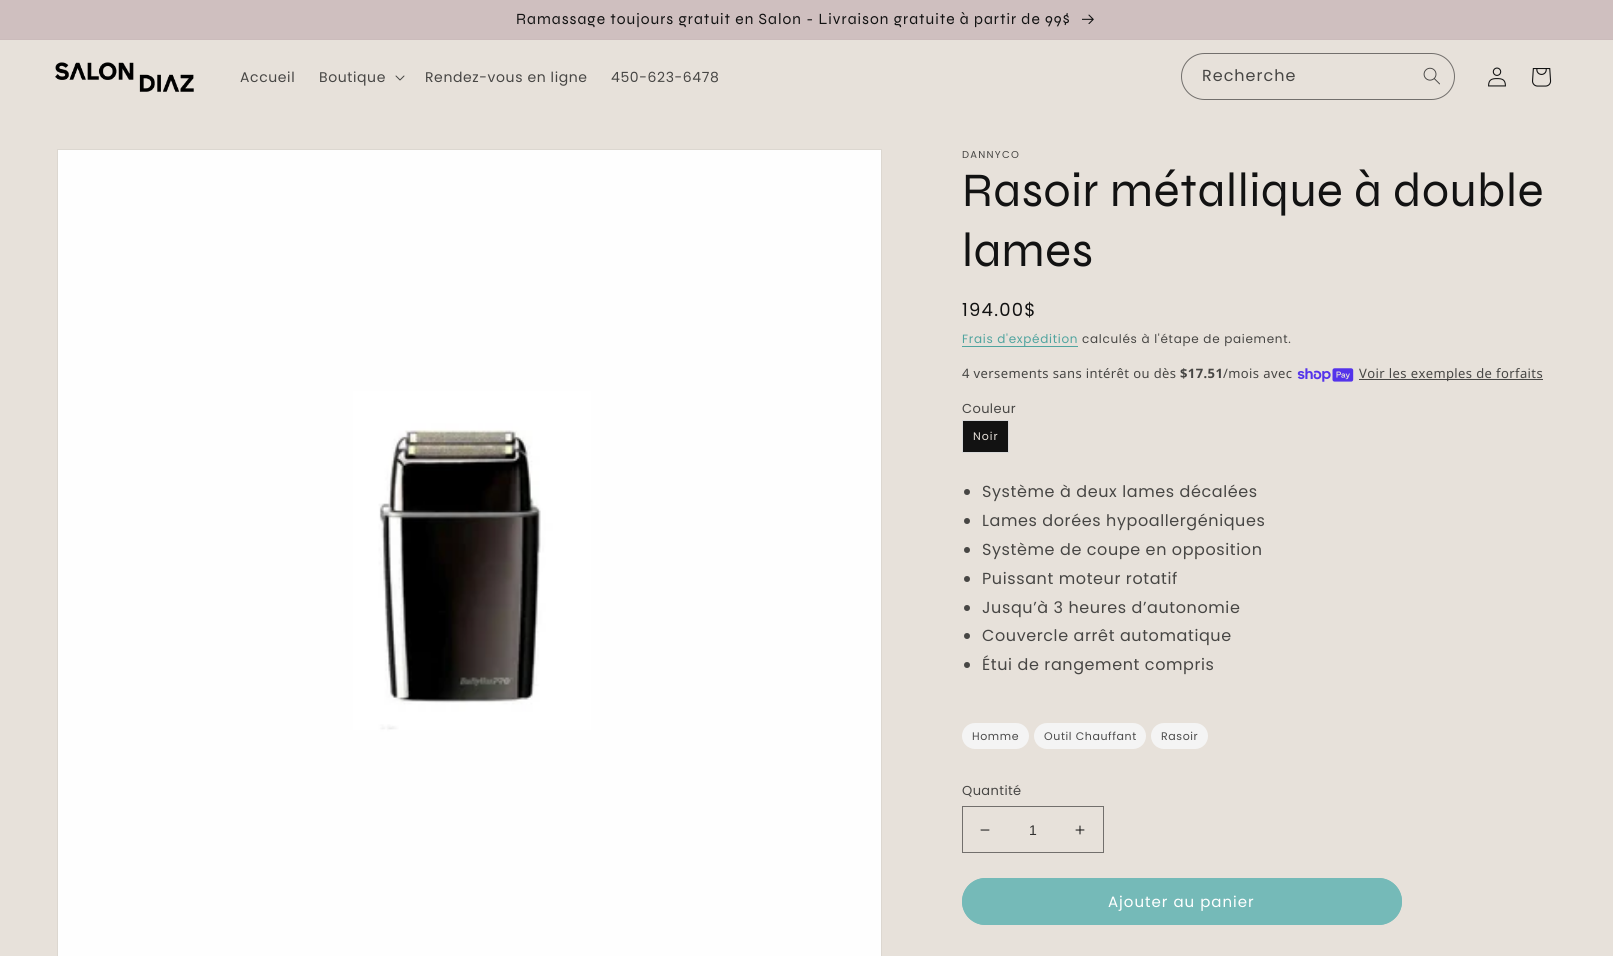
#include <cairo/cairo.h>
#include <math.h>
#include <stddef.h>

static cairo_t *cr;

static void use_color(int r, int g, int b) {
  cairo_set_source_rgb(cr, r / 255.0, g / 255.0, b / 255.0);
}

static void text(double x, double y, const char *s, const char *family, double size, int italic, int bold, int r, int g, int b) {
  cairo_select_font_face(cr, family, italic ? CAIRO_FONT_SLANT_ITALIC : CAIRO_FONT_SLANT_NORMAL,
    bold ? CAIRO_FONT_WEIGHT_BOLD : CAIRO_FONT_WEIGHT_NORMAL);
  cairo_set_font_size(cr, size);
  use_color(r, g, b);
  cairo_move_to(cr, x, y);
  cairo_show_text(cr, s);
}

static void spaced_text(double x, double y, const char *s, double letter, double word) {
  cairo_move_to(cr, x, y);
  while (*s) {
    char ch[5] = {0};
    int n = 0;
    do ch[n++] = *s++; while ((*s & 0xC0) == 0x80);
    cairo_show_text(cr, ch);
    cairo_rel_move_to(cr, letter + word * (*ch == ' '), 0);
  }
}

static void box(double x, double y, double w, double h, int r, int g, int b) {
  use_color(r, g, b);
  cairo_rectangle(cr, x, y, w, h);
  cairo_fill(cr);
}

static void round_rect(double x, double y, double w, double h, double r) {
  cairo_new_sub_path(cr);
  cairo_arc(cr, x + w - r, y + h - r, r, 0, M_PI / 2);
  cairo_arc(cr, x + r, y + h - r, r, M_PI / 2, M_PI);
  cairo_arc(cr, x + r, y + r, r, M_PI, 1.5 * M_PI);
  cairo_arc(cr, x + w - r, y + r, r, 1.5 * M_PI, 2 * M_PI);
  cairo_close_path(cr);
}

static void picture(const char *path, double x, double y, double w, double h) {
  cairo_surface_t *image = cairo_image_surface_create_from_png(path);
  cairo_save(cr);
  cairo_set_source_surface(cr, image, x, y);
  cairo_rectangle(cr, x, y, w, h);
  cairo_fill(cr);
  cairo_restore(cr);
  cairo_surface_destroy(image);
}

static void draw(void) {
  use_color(231, 225, 218);
  cairo_paint(cr);
  box(0, 39, 1613, 1, 203, 187, 187);
  box(0, 0, 1613, 39, 207, 191, 191);
  picture("img_01.png", 1082, 14, 12, 10);
  picture("img_02.png", 55, 62, 139, 30);
  picture("img_03.png", 395, 75, 10, 6);
  picture("img_04.png", 1423, 67, 17, 18);
  round_rect(1181.5, 53.5, 273, 46, 23);
  use_color(114, 111, 108);
  cairo_set_line_width(cr, 1);
  cairo_stroke(cr);
  picture("img_05.png", 1488, 67, 18, 20);
  picture("img_06.png", 1532, 68, 20, 19);
  cairo_rectangle(cr, 57.5, 149.5, 824, 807);
  use_color(220, 215, 208);
  cairo_stroke(cr);
  picture("img_07.png", 58, 150, 823, 806);
  box(962, 346, 116, 1, 80, 164, 159);
  picture("img_08.png", 1297, 368, 57, 14);
  box(1359, 379, 184, 1, 71, 70, 68);
  use_color(18, 18, 18);
  cairo_rectangle(cr, 962.5, 420.5, 46, 32);
  cairo_fill_preserve(cr);
  use_color(216, 216, 216);
  cairo_stroke(cr);
  use_color(71, 70, 68);
  cairo_arc(cr, 967, 492, 3, 0, 2 * M_PI);
  cairo_fill(cr);
  cairo_arc(cr, 967, 521, 3, 0, 2 * M_PI);
  cairo_fill(cr);
  cairo_arc(cr, 967, 550, 3, 0, 2 * M_PI);
  cairo_fill(cr);
  cairo_arc(cr, 967, 579, 3, 0, 2 * M_PI);
  cairo_fill(cr);
  cairo_arc(cr, 967, 608, 3, 0, 2 * M_PI);
  cairo_fill(cr);
  cairo_arc(cr, 967, 636, 3, 0, 2 * M_PI);
  cairo_fill(cr);
  cairo_arc(cr, 967, 665, 3, 0, 2 * M_PI);
  cairo_fill(cr);
  use_color(244, 244, 244);
  round_rect(962, 723, 67, 26, 13);
  cairo_fill(cr);
  round_rect(1034, 723, 112, 26, 13);
  cairo_fill(cr);
  round_rect(1151, 723, 57, 26, 13);
  cairo_fill(cr);
  picture("img_09.png", 980, 829, 10, 2);
  picture("img_10.png", 1075, 825, 10, 10);
  cairo_rectangle(cr, 962.5, 806.5, 141, 46);
  use_color(114, 111, 108);
  cairo_stroke(cr);
  use_color(117, 186, 184);
  round_rect(962, 878, 440, 47, 23.5);
  cairo_fill(cr);
  round_rect(962.5, 878.5, 439, 46, 23);
  cairo_stroke(cr);
  cairo_select_font_face(cr, "Syne", CAIRO_FONT_SLANT_NORMAL, CAIRO_FONT_WEIGHT_NORMAL);
  cairo_set_font_size(cr, 15.6);
  use_color(18, 18, 18);
  spaced_text(516, 24, "Ramassage toujours gratuit en Salon - Livraison gratuite à partir de 99$", 1, 0);
  cairo_select_font_face(cr, "Poppins", CAIRO_FONT_SLANT_NORMAL, CAIRO_FONT_WEIGHT_NORMAL);
  cairo_set_font_size(cr, 14);
  use_color(71, 70, 68);
  spaced_text(240, 82, "Accueil", 0.6, 0);
  spaced_text(319, 82, "Boutique", 0.6, 0);
  spaced_text(425, 82, "Rendez-vous en ligne", 0.6, 0);
  spaced_text(611, 82, "450-623-6478", 0.6, 0);
  cairo_set_font_size(cr, 16);
  spaced_text(1202, 81, "Recherche", 1, 0);
  cairo_set_font_size(cr, 10);
  spaced_text(962, 158, "DANNYCO", 1.25, 0);
  cairo_select_font_face(cr, "Syne", CAIRO_FONT_SLANT_NORMAL, CAIRO_FONT_WEIGHT_NORMAL);
  cairo_set_font_size(cr, 48);
  use_color(18, 18, 18);
  spaced_text(962, 206, "Rasoir métallique à double", 0.75, 0);
  spaced_text(962, 266, "lames", 0.75, 0);
  cairo_select_font_face(cr, "Poppins", CAIRO_FONT_SLANT_NORMAL, CAIRO_FONT_WEIGHT_NORMAL);
  cairo_set_font_size(cr, 18);
  spaced_text(962, 316, "194.00$", 1.25, 0);
  cairo_set_font_size(cr, 12);
  use_color(80, 164, 159);
  spaced_text(962, 343, "Frais d'expédition", 0.7, 0);
  use_color(71, 70, 68);
  spaced_text(1082, 343, "calculés à l'étape de paiement.", 0.7, 0);
  cairo_select_font_face(cr, "Noto Sans", CAIRO_FONT_SLANT_NORMAL, CAIRO_FONT_WEIGHT_NORMAL);
  cairo_set_font_size(cr, 13);
  spaced_text(962, 378, "4 versements sans intérêt ou dès", 0.4, 0);
  cairo_select_font_face(cr, "Noto Sans", CAIRO_FONT_SLANT_NORMAL, CAIRO_FONT_WEIGHT_BOLD);
  spaced_text(1180, 378, "$17.51", 0.4, 0);
  cairo_select_font_face(cr, "Noto Sans", CAIRO_FONT_SLANT_NORMAL, CAIRO_FONT_WEIGHT_NORMAL);
  spaced_text(1223, 378, "/mois avec", 0.4, 0);
  spaced_text(1359, 378, "Voir les exemples de forfaits", 0.4, 0);
  cairo_select_font_face(cr, "Poppins", CAIRO_FONT_SLANT_NORMAL, CAIRO_FONT_WEIGHT_NORMAL);
  spaced_text(962, 413, "Couleur", 0.4, 0);
  cairo_set_font_size(cr, 11);
  use_color(231, 225, 218);
  spaced_text(973, 440, "Noir", 1, 0);
  cairo_set_font_size(cr, 16);
  use_color(71, 70, 68);
  spaced_text(982, 497, "Système à deux lames décalées", 0.6, 0);
  spaced_text(982, 526, "Lames dorées hypoallergéniques", 0.6, 0);
  spaced_text(982, 555, "Système de coupe en opposition", 0.6, 0);
  spaced_text(982, 584, "Puissant moteur rotatif", 0.6, 0);
  spaced_text(982, 613, "Jusqu’à 3 heures d’autonomie", 0.6, 0);
  spaced_text(982, 641, "Couvercle arrêt automatique", 0.6, 0);
  spaced_text(982, 670, "Étui de rangement compris", 0.6, 0);
  cairo_set_font_size(cr, 11);
  use_color(75, 75, 75);
  spaced_text(972, 740, "Homme", 0.6, 0);
  spaced_text(1044, 740, "Outil Chauffant", 0.6, 0);
  spaced_text(1161, 740, "Rasoir", 0.6, 0);
  cairo_set_font_size(cr, 13);
  use_color(71, 70, 68);
  spaced_text(962, 795, "Quantité", 0.4, 0);
  text(1029, 835, "1", "Liberation Sans", 14, 0, 0, 50, 49, 48);
  cairo_select_font_face(cr, "Poppins", CAIRO_FONT_SLANT_NORMAL, CAIRO_FONT_WEIGHT_NORMAL);
  cairo_set_font_size(cr, 15);
  use_color(255, 255, 255);
  spaced_text(1108, 907, "Ajouter au panier", 1, 0);
}

int main(void) {
  cairo_surface_t *surface = cairo_image_surface_create(CAIRO_FORMAT_RGB24, 1613, 956);
  cr = cairo_create(surface);
  cairo_font_options_t *options = cairo_font_options_create();
  cairo_font_options_set_hint_metrics(options, CAIRO_HINT_METRICS_OFF);
  cairo_font_options_set_hint_style(options, CAIRO_HINT_STYLE_NONE);
  cairo_set_font_options(cr, options);
  cairo_set_miter_limit(cr, 4);
  draw();
  cairo_surface_write_to_png(surface, "out.png");
  cairo_font_options_destroy(options);
  cairo_destroy(cr);
  cairo_surface_destroy(surface);
  return 0;
}
